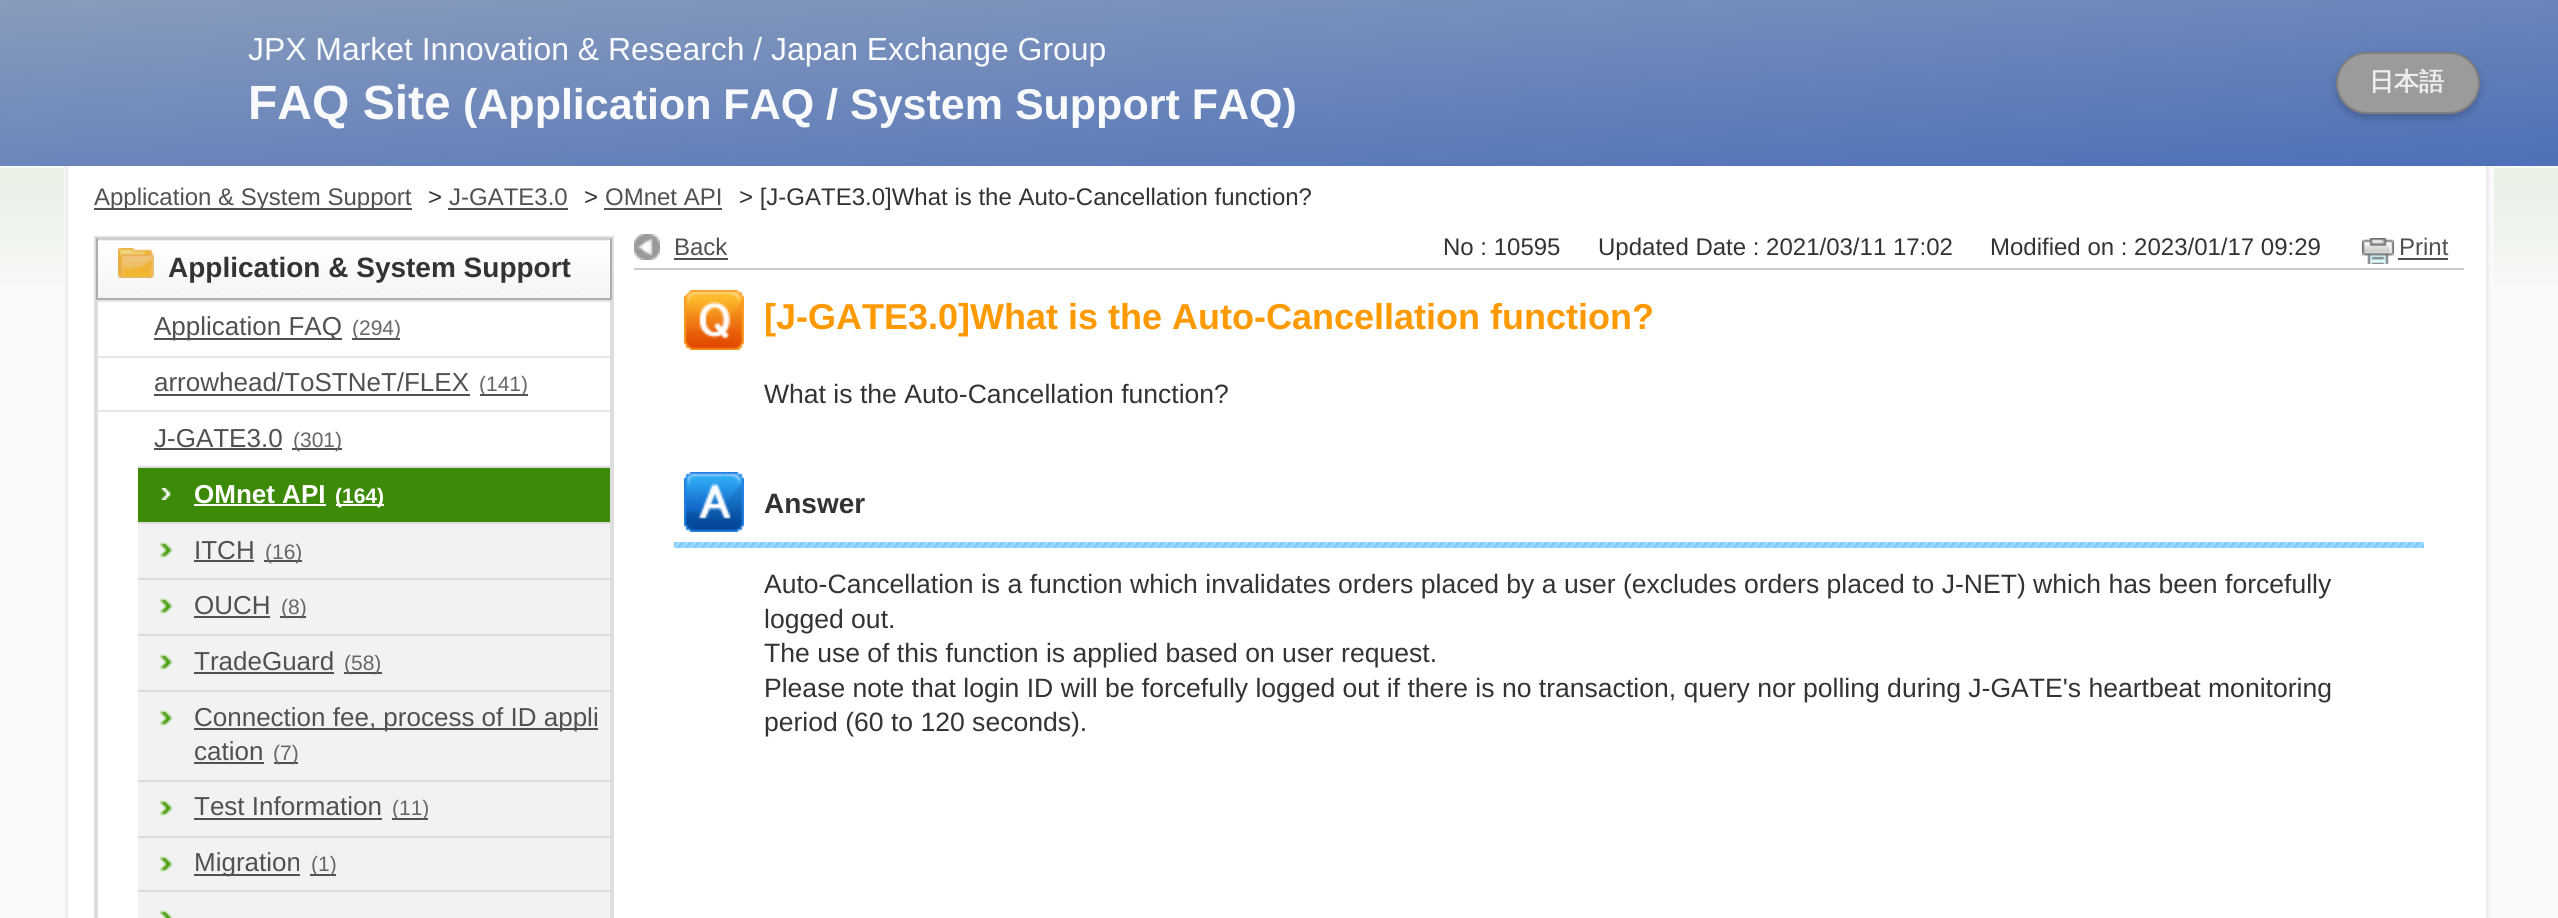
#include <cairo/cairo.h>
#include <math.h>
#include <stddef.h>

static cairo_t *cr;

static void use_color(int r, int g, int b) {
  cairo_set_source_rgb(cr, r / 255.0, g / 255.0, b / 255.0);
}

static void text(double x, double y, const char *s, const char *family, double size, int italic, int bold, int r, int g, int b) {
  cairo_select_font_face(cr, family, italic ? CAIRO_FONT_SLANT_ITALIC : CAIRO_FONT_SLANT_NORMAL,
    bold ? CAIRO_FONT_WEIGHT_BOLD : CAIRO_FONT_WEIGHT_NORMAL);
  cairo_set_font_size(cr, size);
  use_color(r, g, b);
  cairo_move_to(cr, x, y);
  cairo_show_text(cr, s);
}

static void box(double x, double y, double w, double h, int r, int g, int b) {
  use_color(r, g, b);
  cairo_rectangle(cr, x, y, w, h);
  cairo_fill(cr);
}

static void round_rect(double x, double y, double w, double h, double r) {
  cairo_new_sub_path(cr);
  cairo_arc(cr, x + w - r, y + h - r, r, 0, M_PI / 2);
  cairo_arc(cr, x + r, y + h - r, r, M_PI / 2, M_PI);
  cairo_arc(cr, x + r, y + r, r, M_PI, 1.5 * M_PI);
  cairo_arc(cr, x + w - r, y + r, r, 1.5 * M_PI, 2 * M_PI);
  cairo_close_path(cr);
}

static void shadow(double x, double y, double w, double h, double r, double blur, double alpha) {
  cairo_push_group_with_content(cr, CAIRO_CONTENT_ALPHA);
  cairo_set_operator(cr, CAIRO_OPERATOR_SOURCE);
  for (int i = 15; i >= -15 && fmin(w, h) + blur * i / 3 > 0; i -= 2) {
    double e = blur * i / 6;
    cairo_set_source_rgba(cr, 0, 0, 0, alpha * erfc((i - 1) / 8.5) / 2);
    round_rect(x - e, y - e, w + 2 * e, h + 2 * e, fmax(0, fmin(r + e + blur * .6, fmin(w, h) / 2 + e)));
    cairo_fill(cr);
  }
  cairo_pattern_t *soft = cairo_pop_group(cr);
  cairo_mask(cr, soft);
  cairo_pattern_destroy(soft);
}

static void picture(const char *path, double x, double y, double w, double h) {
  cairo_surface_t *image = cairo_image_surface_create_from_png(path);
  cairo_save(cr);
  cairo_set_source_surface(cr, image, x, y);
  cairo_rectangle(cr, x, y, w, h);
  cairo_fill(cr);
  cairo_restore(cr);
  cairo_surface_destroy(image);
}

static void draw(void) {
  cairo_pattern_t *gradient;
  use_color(255, 255, 255);
  cairo_paint(cr);
  gradient = cairo_pattern_create_linear(1268, -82, 1290, 248);
  cairo_pattern_add_color_stop_rgba(gradient, 0, 0.533, 0.608, 0.737, 1);
  cairo_pattern_add_color_stop_rgba(gradient, 1, 0.302, 0.439, 0.722, 1);
  cairo_set_source(cr, gradient);
  cairo_pattern_destroy(gradient);
  cairo_rectangle(cr, 0, 0, 2558, 166);
  cairo_fill(cr);
  use_color(0, 0, 0);
  shadow(2336, 56, 144, 62, 31, 4, 0.2);
  use_color(155, 155, 155);
  round_rect(2337, 53, 142, 60, 30);
  cairo_fill_preserve(cr);
  use_color(127, 127, 127);
  cairo_stroke(cr);
  box(0, 283, 2558, 635, 250, 250, 250);
  picture("img_01.png", 0, 166, 2558, 117);
  box(69, 166, 2416, 752, 255, 255, 255);
  picture("img_02.png", 2485, 166, 9, 752);
  picture("img_03.png", 64, 166, 5, 752);
  box(94, 208, 318, 2, 81, 81, 81);
  box(448, 208, 120, 2, 81, 81, 81);
  box(604, 208, 118, 2, 81, 81, 81);
  box(94, 236, 520, 682, 222, 222, 222);
  picture("img_04.png", 98, 238, 512, 60);
  box(610, 238, 2, 62, 173, 173, 173);
  box(96, 298, 516, 2, 173, 173, 173);
  box(96, 238, 2, 62, 173, 173, 173);
  picture("img_05.png", 118, 248, 36, 30);
  box(98, 302, 512, 616, 255, 255, 255);
  box(98, 300, 512, 2, 230, 230, 230);
  box(154, 338, 188, 2, 81, 81, 81);
  box(352, 338, 48, 2, 81, 81, 81);
  box(98, 356, 512, 2, 230, 230, 230);
  box(154, 394, 316, 2, 81, 81, 81);
  box(480, 394, 48, 2, 81, 81, 81);
  box(98, 410, 512, 2, 230, 230, 230);
  box(154, 448, 128, 2, 81, 81, 81);
  box(292, 448, 50, 2, 81, 81, 81);
  box(138, 524, 472, 394, 242, 242, 242);
  box(138, 466, 472, 2, 220, 220, 220);
  box(138, 468, 472, 54, 61, 137, 8);
  picture("img_06.png", 161, 488, 10, 12);
  box(194, 504, 132, 2, 255, 255, 255);
  box(336, 504, 48, 2, 255, 255, 255);
  box(138, 522, 472, 2, 220, 220, 220);
  picture("img_07.png", 160, 542, 12, 16);
  box(194, 560, 60, 2, 81, 81, 81);
  box(264, 560, 38, 2, 81, 81, 81);
  box(138, 578, 472, 2, 220, 220, 220);
  picture("img_07.png", 160, 598, 12, 16);
  box(194, 616, 76, 2, 81, 81, 81);
  box(280, 616, 26, 2, 81, 81, 81);
  box(138, 634, 472, 2, 220, 220, 220);
  picture("img_07.png", 160, 654, 12, 16);
  box(194, 672, 140, 2, 81, 81, 81);
  box(344, 672, 38, 2, 81, 81, 81);
  box(138, 690, 472, 2, 220, 220, 220);
  picture("img_07.png", 160, 710, 12, 16);
  box(194, 728, 404, 2, 81, 81, 81);
  box(194, 762, 70, 2, 81, 81, 81);
  box(274, 762, 24, 2, 81, 81, 81);
  box(138, 780, 472, 2, 220, 220, 220);
  picture("img_07.png", 160, 800, 12, 16);
  box(194, 818, 188, 2, 81, 81, 81);
  box(392, 818, 36, 2, 81, 81, 81);
  box(138, 836, 472, 2, 220, 220, 220);
  picture("img_07.png", 160, 856, 12, 16);
  box(194, 874, 106, 2, 81, 81, 81);
  box(310, 874, 26, 2, 81, 81, 81);
  box(138, 890, 472, 2, 220, 220, 220);
  picture("img_08.png", 160, 910, 12, 8);
  box(634, 268, 1830, 2, 204, 204, 204);
  picture("img_09.png", 634, 234, 26, 26);
  box(674, 258, 54, 2, 81, 81, 81);
  picture("img_10.png", 2362, 238, 32, 26);
  box(2398, 258, 50, 2, 81, 81, 81);
  picture("img_11.png", 684, 290, 60, 60);
  picture("img_12.png", 674, 542, 1750, 6);
  picture("img_13.png", 684, 472, 60, 60);
  text(248, 60, "JPX Market Innovation & Research / Japan Exchange Group", "Liberation Sans", 31.9, 0, 0, 248, 250, 253);
  text(248, 119, "FAQ Site", "Liberation Sans", 48, 0, 1, 248, 250, 253);
  text(463, 119, "(Application FAQ / System Support FAQ)", "Liberation Sans", 43, 0, 1, 248, 250, 253);
  text(2369, 90, "日本語", "WenQuanYi Zen Hei", 25, 0, 1, 238, 238, 238);
  text(94, 205, "Application & System Support", "Liberation Sans", 24, 0, 0, 81, 81, 81);
  text(428, 205, ">", "Liberation Sans", 24, 0, 0, 51, 51, 51);
  text(449, 205, "J-GATE3.0", "Liberation Sans", 24, 0, 0, 81, 81, 81);
  text(584, 205, ">", "Liberation Sans", 24, 0, 0, 51, 51, 51);
  text(605, 205, "OMnet API", "Liberation Sans", 24, 0, 0, 81, 81, 81);
  text(739, 205, "> [J-GATE3.0]What is the Auto-Cancellation function?", "Liberation Sans", 24, 0, 0, 51, 51, 51);
  text(168, 277, "Application & System Support", "Liberation Sans", 28, 0, 1, 51, 51, 51);
  text(154, 335, "Application FAQ", "Liberation Sans", 26, 0, 0, 81, 81, 81);
  text(352, 335, "(294)", "Liberation Sans", 21, 0, 0, 102, 102, 102);
  text(154, 391, "arrowhead/ToSTNeT/FLEX", "Liberation Sans", 26, 0, 0, 81, 81, 81);
  text(479, 391, "(141)", "Liberation Sans", 21, 0, 0, 102, 102, 102);
  text(154, 447, "J-GATE3.0", "Liberation Sans", 26, 0, 0, 81, 81, 81);
  text(293, 447, "(301)", "Liberation Sans", 21, 0, 0, 102, 102, 102);
  text(194, 503, "OMnet API", "Liberation Sans", 26, 0, 1, 255, 255, 255);
  text(335, 503, "(164)", "Liberation Sans", 21, 0, 1, 255, 255, 255);
  text(194, 559, "ITCH", "Liberation Sans", 26, 0, 0, 81, 81, 81);
  text(265, 559, "(16)", "Liberation Sans", 21, 0, 0, 102, 102, 102);
  text(194, 614, "OUCH", "Liberation Sans", 26, 0, 0, 81, 81, 81);
  text(281, 614, "(8)", "Liberation Sans", 21, 0, 0, 102, 102, 102);
  text(194, 670, "TradeGuard", "Liberation Sans", 26, 0, 0, 81, 81, 81);
  text(344, 670, "(58)", "Liberation Sans", 21, 0, 0, 102, 102, 102);
  text(194, 726, "Connection fee, process of ID appli", "Liberation Sans", 26, 0, 0, 81, 81, 81);
  text(194, 760, "cation", "Liberation Sans", 26, 0, 0, 81, 81, 81);
  text(273, 760, "(7)", "Liberation Sans", 21, 0, 0, 102, 102, 102);
  text(194, 815, "Test Information", "Liberation Sans", 26, 0, 0, 81, 81, 81);
  text(392, 815, "(11)", "Liberation Sans", 21, 0, 0, 102, 102, 102);
  text(194, 871, "Migration", "Liberation Sans", 26, 0, 0, 81, 81, 81);
  text(311, 871, "(1)", "Liberation Sans", 21, 0, 0, 102, 102, 102);
  text(674, 255, "Back", "Liberation Sans", 24, 0, 0, 81, 81, 81);
  text(1443, 255, "No : 10595", "Liberation Sans", 24, 0, 0, 51, 51, 51);
  text(1598, 255, "Updated Date : 2021/03/11 17:02", "Liberation Sans", 24, 0, 0, 51, 51, 51);
  text(1990, 255, "Modified on : 2023/01/17 09:29", "Liberation Sans", 24, 0, 0, 51, 51, 51);
  text(2399, 255, "Print", "Liberation Sans", 24, 0, 0, 81, 81, 81);
  text(764, 329, "[J-GATE3.0]What is the Auto-Cancellation function?", "Liberation Sans", 36, 0, 1, 255, 153, 0);
  text(764, 403, "What is the Auto-Cancellation function?", "Liberation Sans", 26.55, 0, 0, 51, 51, 51);
  text(764, 513, "Answer", "Liberation Sans", 28, 0, 1, 51, 51, 51);
  text(764, 593, "Auto-Cancellation is a function which invalidates orders placed by a user (excludes orders placed to J-NET) which has been forcefully", "Liberation Sans", 26.55, 0, 0, 51, 51, 51);
  text(764, 628, "logged out.", "Liberation Sans", 26.55, 0, 0, 51, 51, 51);
  text(764, 662, "The use of this function is applied based on user request.", "Liberation Sans", 26.55, 0, 0, 51, 51, 51);
  text(764, 697, "Please note that login ID will be forcefully logged out if there is no transaction, query nor polling during J-GATE's heartbeat monitoring", "Liberation Sans", 26.55, 0, 0, 51, 51, 51);
  text(764, 731, "period (60 to 120 seconds).", "Liberation Sans", 26.55, 0, 0, 51, 51, 51);
}

int main(void) {
  cairo_surface_t *surface = cairo_image_surface_create(CAIRO_FORMAT_RGB24, 2558, 918);
  cr = cairo_create(surface);
  cairo_font_options_t *options = cairo_font_options_create();
  cairo_font_options_set_hint_metrics(options, CAIRO_HINT_METRICS_OFF);
  cairo_font_options_set_hint_style(options, CAIRO_HINT_STYLE_NONE);
  cairo_set_font_options(cr, options);
  cairo_set_miter_limit(cr, 4);
  draw();
  cairo_surface_write_to_png(surface, "out.png");
  cairo_font_options_destroy(options);
  cairo_destroy(cr);
  cairo_surface_destroy(surface);
  return 0;
}
